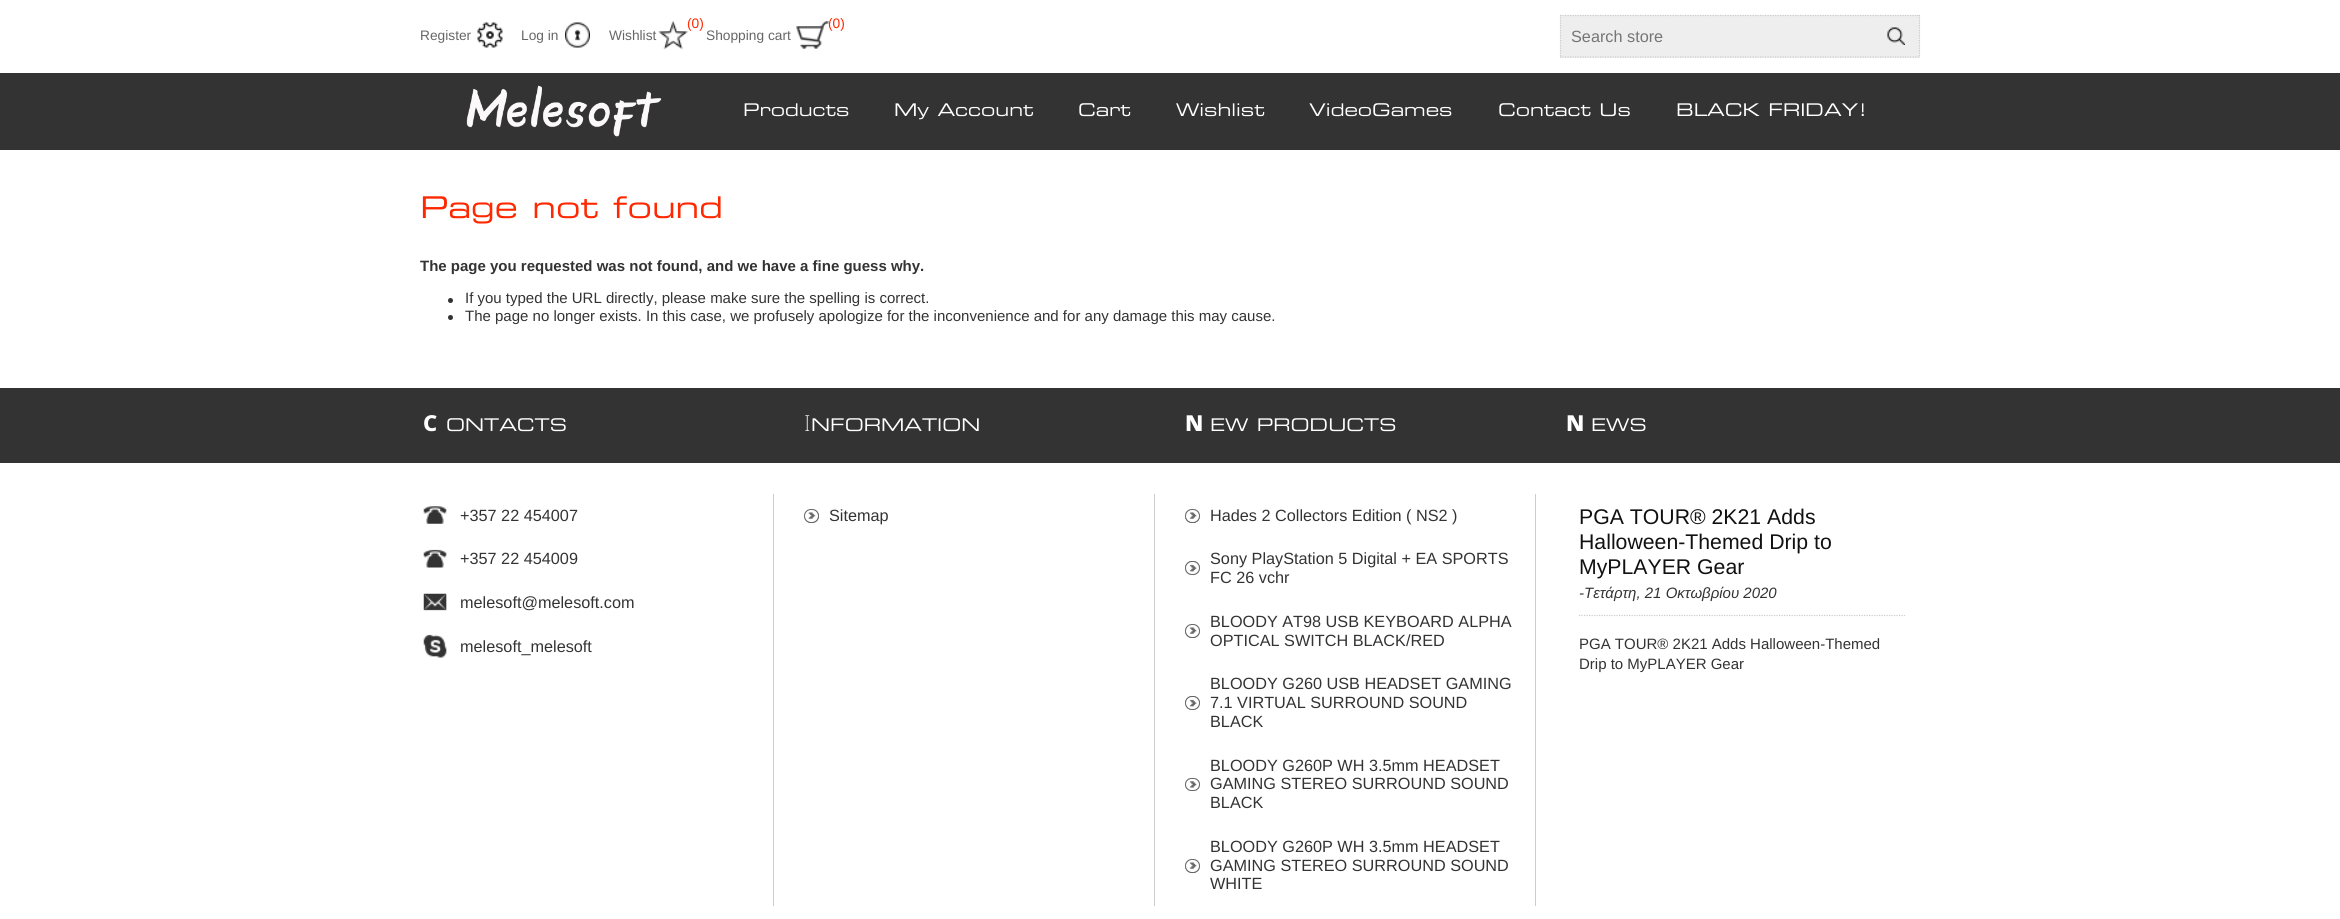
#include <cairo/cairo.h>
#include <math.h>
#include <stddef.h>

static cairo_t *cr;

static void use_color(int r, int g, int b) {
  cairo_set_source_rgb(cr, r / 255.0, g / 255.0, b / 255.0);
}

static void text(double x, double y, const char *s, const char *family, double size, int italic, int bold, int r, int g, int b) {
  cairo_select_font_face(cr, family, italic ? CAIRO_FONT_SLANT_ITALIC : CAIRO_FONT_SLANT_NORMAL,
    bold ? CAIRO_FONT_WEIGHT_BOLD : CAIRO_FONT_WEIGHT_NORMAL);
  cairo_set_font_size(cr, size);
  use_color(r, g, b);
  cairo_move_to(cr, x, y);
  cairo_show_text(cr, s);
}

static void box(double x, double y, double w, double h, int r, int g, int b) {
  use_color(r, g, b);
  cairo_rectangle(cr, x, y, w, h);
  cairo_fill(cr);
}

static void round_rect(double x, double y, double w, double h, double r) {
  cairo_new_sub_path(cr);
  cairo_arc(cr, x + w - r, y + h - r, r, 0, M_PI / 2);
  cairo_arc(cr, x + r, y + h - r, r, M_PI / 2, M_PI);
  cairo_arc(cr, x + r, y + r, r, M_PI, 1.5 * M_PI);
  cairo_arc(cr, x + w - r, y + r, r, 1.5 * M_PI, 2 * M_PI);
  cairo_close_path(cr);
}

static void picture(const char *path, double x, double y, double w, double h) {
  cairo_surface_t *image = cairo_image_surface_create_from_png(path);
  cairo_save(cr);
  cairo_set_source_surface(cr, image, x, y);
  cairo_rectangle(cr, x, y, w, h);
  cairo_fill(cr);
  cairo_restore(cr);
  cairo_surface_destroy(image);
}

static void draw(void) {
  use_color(255, 255, 255);
  cairo_paint(cr);
  picture("img_01.png", 477, 22, 26, 26);
  picture("img_02.png", 565, 22, 25, 26);
  picture("img_03.png", 658, 21, 30, 28);
  picture("img_04.png", 796, 21, 33, 28);
  box(1560, 15, 360, 43, 238, 238, 238);
  cairo_new_path(cr);
  cairo_move_to(cr, 1560, 15.5);
  cairo_line_to(cr, 1920, 15.5);
  use_color(204, 204, 204);
  cairo_set_line_width(cr, 1.2);
  cairo_set_dash(cr, (double[]){1.25, 1.25}, 2, 0);
  cairo_stroke(cr);
  cairo_new_path(cr);
  cairo_move_to(cr, 1919.5, 15);
  cairo_line_to(cr, 1919.5, 57.5);
  cairo_stroke(cr);
  cairo_new_path(cr);
  cairo_move_to(cr, 1560, 57);
  cairo_line_to(cr, 1920, 57);
  cairo_stroke(cr);
  cairo_new_path(cr);
  cairo_move_to(cr, 1560.5, 15);
  cairo_line_to(cr, 1560.5, 57.5);
  cairo_stroke(cr);
  picture("img_05.png", 1887, 27, 18, 18);
  box(0, 73, 2340, 77, 51, 51, 51);
  picture("img_06.png", 466, 85, 196, 52);
  cairo_arc(cr, 450.5, 300.5, 2.5, 0, 2 * M_PI);
  cairo_fill(cr);
  cairo_arc(cr, 450.5, 317.5, 2.5, 0, 2 * M_PI);
  cairo_fill(cr);
  box(0, 388, 2340, 75, 51, 51, 51);
  box(773, 494, 1, 412, 204, 204, 204);
  picture("img_07.png", 423, 506, 24, 18);
  picture("img_08.png", 423, 549, 24, 19);
  picture("img_09.png", 423, 593, 24, 18);
  picture("img_10.png", 423, 634, 24, 24);
  box(1154, 494, 1, 412, 204, 204, 204);
  use_color(102, 102, 102);
  round_rect(804, 509, 15, 14, 7);
  cairo_fill(cr);
  picture("img_11.png", 804, 509, 15, 14);
  round_rect(804.5, 509.5, 14, 13, 6.5);
  cairo_set_line_width(cr, 1);
  cairo_set_dash(cr, NULL, 0, 0);
  cairo_stroke(cr);
  box(1535, 494, 1, 412, 204, 204, 204);
  use_color(102, 102, 102);
  round_rect(1185, 509, 15, 14, 7);
  cairo_fill(cr);
  picture("img_12.png", 1185, 509, 15, 14);
  round_rect(1185.5, 509.5, 14, 13, 6.5);
  cairo_stroke(cr);
  round_rect(1185, 561, 15, 14, 7);
  cairo_fill(cr);
  picture("img_13.png", 1185, 561, 15, 14);
  round_rect(1185.5, 561.5, 14, 13, 6.5);
  cairo_stroke(cr);
  round_rect(1185, 624, 15, 14, 7);
  cairo_fill(cr);
  picture("img_12.png", 1185, 624, 15, 14);
  round_rect(1185.5, 624.5, 14, 13, 6.5);
  cairo_stroke(cr);
  round_rect(1185, 696, 15, 14, 7);
  cairo_fill(cr);
  picture("img_13.png", 1185, 696, 15, 14);
  round_rect(1185.5, 696.5, 14, 13, 6.5);
  cairo_stroke(cr);
  round_rect(1185, 778, 15, 13, 6.5);
  cairo_fill(cr);
  picture("img_14.png", 1185, 778, 15, 13);
  round_rect(1185.5, 778.5, 14, 12, 6);
  cairo_stroke(cr);
  round_rect(1185, 859, 15, 14, 7);
  cairo_fill(cr);
  picture("img_12.png", 1185, 859, 15, 14);
  round_rect(1185.5, 859.5, 14, 13, 6.5);
  cairo_stroke(cr);
  cairo_new_path(cr);
  cairo_move_to(cr, 1579, 615.5);
  cairo_line_to(cr, 1905, 615.5);
  use_color(204, 204, 204);
  cairo_set_line_width(cr, 1.2);
  cairo_set_dash(cr, (double[]){1.25, 1.25}, 2, 0);
  cairo_stroke(cr);
  text(420, 40, "Register", "Liberation Sans", 13.75, 0, 0, 102, 102, 102);
  text(521, 40, "Log in", "Liberation Sans", 13.75, 0, 0, 102, 102, 102);
  text(687, 28, "(0)", "Liberation Sans", 13.75, 0, 0, 255, 40, 0);
  text(609, 40, "Wishlist", "Liberation Sans", 13.75, 0, 0, 102, 102, 102);
  text(828, 28, "(0)", "Liberation Sans", 13.75, 0, 0, 255, 40, 0);
  text(706, 40, "Shopping cart", "Liberation Sans", 13.75, 0, 0, 102, 102, 102);
  text(1571, 42, "Search store", "Liberation Sans", 16.25, 0, 0, 117, 117, 117);
  text(743, 116, "Products", "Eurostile", 17.5, 0, 0, 255, 255, 255);
  text(894, 116, "My Account", "Eurostile", 17.5, 0, 0, 255, 255, 255);
  text(1078, 116, "Cart", "Eurostile", 17.5, 0, 0, 255, 255, 255);
  text(1176, 116, "Wishlist", "Eurostile", 17.5, 0, 0, 255, 255, 255);
  text(1309, 116, "VideoGames", "Eurostile", 17.5, 0, 0, 255, 255, 255);
  text(1498, 116, "Contact Us", "Eurostile", 17.5, 0, 0, 255, 255, 255);
  text(1676, 116, "BLACK FRIDAY!", "Eurostile", 17.5, 0, 0, 255, 255, 255);
  text(420, 218, "Page not found", "Eurostile", 30, 0, 0, 255, 40, 0);
  text(420, 271, "The page you requested was not found, and we have a fine guess why.", "Liberation Sans", 15, 0, 1, 51, 51, 51);
  text(465, 303, "If you typed the URL directly, please make sure the spelling is correct.", "Liberation Sans", 15, 0, 0, 51, 51, 51);
  text(465, 321, "The page no longer exists. In this case, we profusely apologize for the inconvenience and for any damage this may cause.", "Liberation Sans", 15, 0, 0, 51, 51, 51);
  text(423, 431, "C", "Noto Sans ExtraBold", 22, 0, 0, 255, 255, 255);
  text(446, 431, "ONTACTS", "Eurostile", 17.5, 0, 0, 255, 255, 255);
  text(460, 521, "+357 22 454007", "Liberation Sans", 16.25, 0, 0, 51, 51, 51);
  text(460, 564, "+357 22 454009", "Liberation Sans", 16.25, 0, 0, 51, 51, 51);
  text(460, 608, "melesoft@melesoft.com", "Liberation Sans", 16.25, 0, 0, 51, 51, 51);
  text(460, 652, "melesoft_melesoft", "Liberation Sans", 16.25, 0, 0, 51, 51, 51);
  text(804, 431, "I", "Noto Sans ExtraLight", 22, 0, 0, 255, 255, 255);
  text(811, 431, "NFORMATION", "Eurostile", 17.5, 0, 0, 255, 255, 255);
  text(829, 521, "Sitemap", "Liberation Sans", 16.25, 0, 0, 51, 51, 51);
  text(1185, 431, "N", "Noto Sans Black", 22, 0, 0, 255, 255, 255);
  text(1210, 431, "EW PRODUCTS", "Eurostile", 17.5, 0, 0, 255, 255, 255);
  text(1210, 521, "Hades 2 Collectors Edition ( NS2 )", "Liberation Sans", 16.25, 0, 0, 51, 51, 51);
  text(1210, 564, "Sony PlayStation 5 Digital + EA SPORTS", "Liberation Sans", 16.25, 0, 0, 51, 51, 51);
  text(1210, 583, "FC 26 vchr", "Liberation Sans", 16.25, 0, 0, 51, 51, 51);
  text(1210, 627, "BLOODY AT98 USB KEYBOARD ALPHA", "Liberation Sans", 16.25, 0, 0, 51, 51, 51);
  text(1210, 646, "OPTICAL SWITCH BLACK/RED", "Liberation Sans", 16.25, 0, 0, 51, 51, 51);
  text(1210, 689, "BLOODY G260 USB HEADSET GAMING", "Liberation Sans", 16.25, 0, 0, 51, 51, 51);
  text(1210, 708, "7.1 VIRTUAL SURROUND SOUND", "Liberation Sans", 16.25, 0, 0, 51, 51, 51);
  text(1210, 727, "BLACK", "Liberation Sans", 16.25, 0, 0, 51, 51, 51);
  text(1210, 771, "BLOODY G260P WH 3.5mm HEADSET", "Liberation Sans", 16.25, 0, 0, 51, 51, 51);
  text(1210, 789, "GAMING STEREO SURROUND SOUND", "Liberation Sans", 16.25, 0, 0, 51, 51, 51);
  text(1210, 808, "BLACK", "Liberation Sans", 16.25, 0, 0, 51, 51, 51);
  text(1210, 852, "BLOODY G260P WH 3.5mm HEADSET", "Liberation Sans", 16.25, 0, 0, 51, 51, 51);
  text(1210, 871, "GAMING STEREO SURROUND SOUND", "Liberation Sans", 16.25, 0, 0, 51, 51, 51);
  text(1210, 889, "WHITE", "Liberation Sans", 16.25, 0, 0, 51, 51, 51);
  text(1566, 431, "N", "Noto Sans Black", 22, 0, 0, 255, 255, 255);
  text(1591, 431, "EWS", "Eurostile", 17.5, 0, 0, 255, 255, 255);
  text(1579, 524, "PGA TOUR® 2K21 Adds", "Liberation Sans", 21.25, 0, 0, 17, 17, 17);
  text(1579, 549, "Halloween-Themed Drip to", "Liberation Sans", 21.25, 0, 0, 17, 17, 17);
  text(1579, 574, "MyPLAYER Gear", "Liberation Sans", 21.25, 0, 0, 17, 17, 17);
  text(1579, 598, "-Τετάρτη, 21 Οκτωβρίου 2020", "Liberation Sans", 15, 1, 0, 51, 51, 51);
  text(1579, 649, "PGA TOUR® 2K21 Adds Halloween-Themed", "Liberation Sans", 15, 0, 0, 51, 51, 51);
  text(1579, 669, "Drip to MyPLAYER Gear", "Liberation Sans", 15, 0, 0, 51, 51, 51);
}

int main(void) {
  cairo_surface_t *surface = cairo_image_surface_create(CAIRO_FORMAT_RGB24, 2340, 919);
  cr = cairo_create(surface);
  cairo_font_options_t *options = cairo_font_options_create();
  cairo_font_options_set_hint_metrics(options, CAIRO_HINT_METRICS_OFF);
  cairo_font_options_set_hint_style(options, CAIRO_HINT_STYLE_NONE);
  cairo_set_font_options(cr, options);
  cairo_set_miter_limit(cr, 4);
  draw();
  cairo_surface_write_to_png(surface, "out.png");
  cairo_font_options_destroy(options);
  cairo_destroy(cr);
  cairo_surface_destroy(surface);
  return 0;
}
